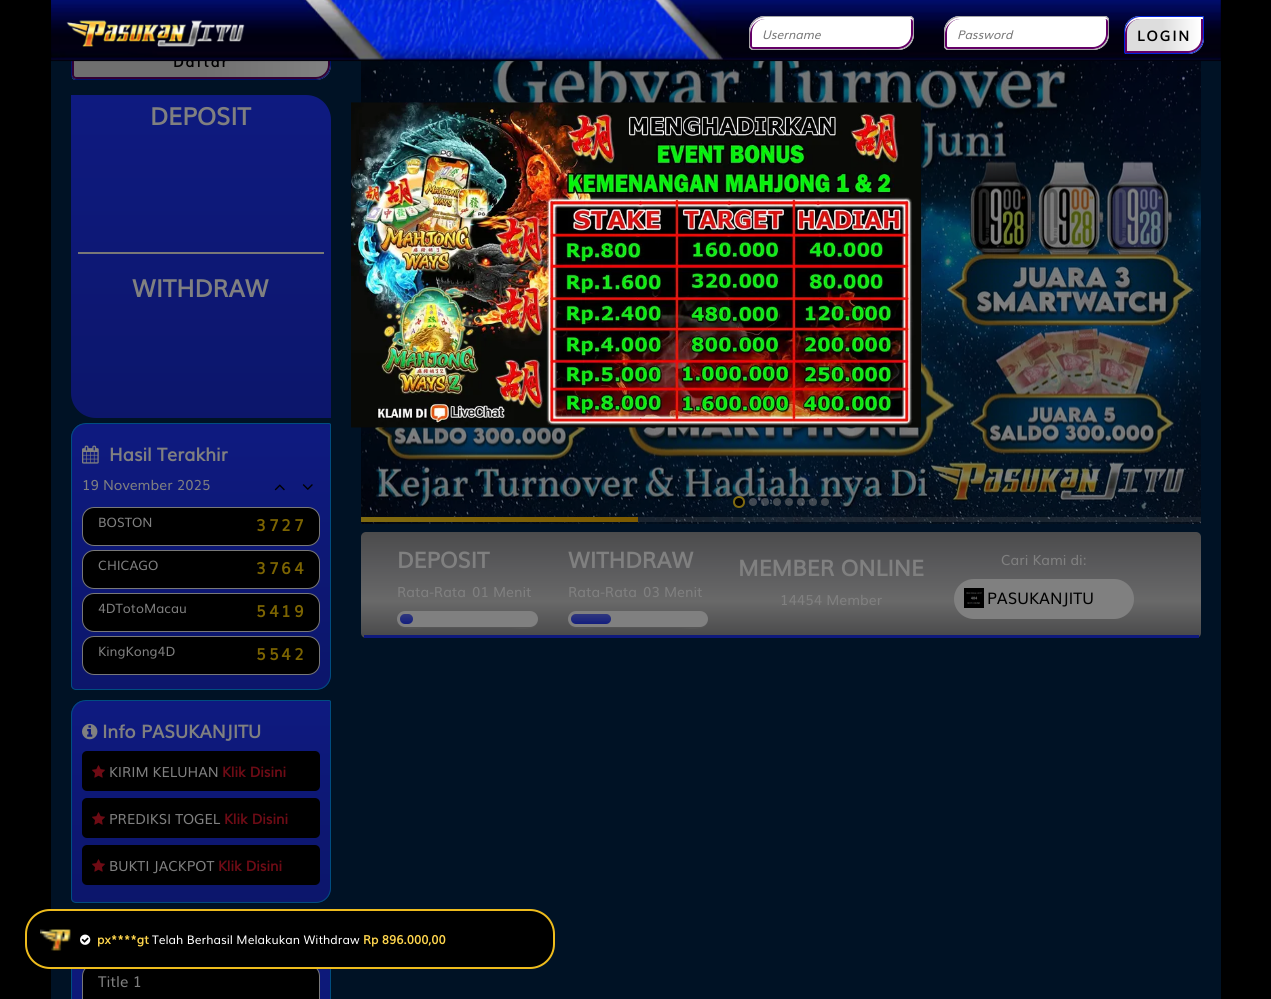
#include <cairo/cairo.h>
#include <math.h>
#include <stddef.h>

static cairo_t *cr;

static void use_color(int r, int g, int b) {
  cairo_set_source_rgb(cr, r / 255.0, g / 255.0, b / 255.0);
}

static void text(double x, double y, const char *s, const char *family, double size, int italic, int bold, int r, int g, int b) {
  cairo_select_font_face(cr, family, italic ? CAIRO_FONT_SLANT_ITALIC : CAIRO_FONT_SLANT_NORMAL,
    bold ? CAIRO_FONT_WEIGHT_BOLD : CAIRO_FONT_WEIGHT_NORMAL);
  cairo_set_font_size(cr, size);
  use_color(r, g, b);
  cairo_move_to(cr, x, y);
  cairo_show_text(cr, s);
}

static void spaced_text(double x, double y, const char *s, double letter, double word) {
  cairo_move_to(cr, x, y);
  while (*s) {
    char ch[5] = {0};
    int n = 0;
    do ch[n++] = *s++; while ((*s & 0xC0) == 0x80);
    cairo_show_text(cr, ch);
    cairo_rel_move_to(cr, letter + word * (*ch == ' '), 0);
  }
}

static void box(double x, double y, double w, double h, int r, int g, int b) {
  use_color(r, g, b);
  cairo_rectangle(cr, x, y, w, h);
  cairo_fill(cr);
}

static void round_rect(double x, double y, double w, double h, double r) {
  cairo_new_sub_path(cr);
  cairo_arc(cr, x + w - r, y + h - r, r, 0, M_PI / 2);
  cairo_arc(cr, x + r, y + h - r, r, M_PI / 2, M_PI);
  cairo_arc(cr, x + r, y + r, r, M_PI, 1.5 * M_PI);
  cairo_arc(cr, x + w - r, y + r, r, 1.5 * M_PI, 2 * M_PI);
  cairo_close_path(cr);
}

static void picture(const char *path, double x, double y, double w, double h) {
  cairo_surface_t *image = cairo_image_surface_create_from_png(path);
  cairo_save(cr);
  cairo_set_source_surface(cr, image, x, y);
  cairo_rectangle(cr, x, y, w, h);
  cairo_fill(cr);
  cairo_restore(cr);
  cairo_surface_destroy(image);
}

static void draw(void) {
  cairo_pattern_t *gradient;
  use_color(0, 0, 0);
  cairo_paint(cr);
  box(51, 61, 1170, 938, 0, 18, 37);
  cairo_save(cr);
  cairo_new_path(cr);
  cairo_move_to(cr, 86, 42);
  cairo_line_to(cr, 329, 42);
  cairo_curve_to(cr, 330, 42, 331, 43, 331, 44);
  cairo_line_to(cr, 331, 65);
  cairo_curve_to(cr, 331, 73.5, 324.5, 80, 316, 80);
  cairo_line_to(cr, 76, 80);
  cairo_curve_to(cr, 73, 80, 71, 78, 71, 75);
  cairo_line_to(cr, 71, 57);
  cairo_curve_to(cr, 71, 48.5, 77.5, 42, 86, 42);
  cairo_close_path(cr);
  cairo_clip(cr);
  gradient = cairo_pattern_create_linear(72, 115, 1104, 115);
  cairo_pattern_add_color_stop_rgba(gradient, 0.12, 0.435, 0.435, 0.435, 1);
  cairo_pattern_add_color_stop_rgba(gradient, 0.24, 0.502, 0.502, 0.502, 1);
  cairo_pattern_add_color_stop_rgba(gradient, 0.38, 0.502, 0.502, 0.502, 1);
  cairo_pattern_add_color_stop_rgba(gradient, 0.57, 0, 0.047, 0.502, 1);
  cairo_pattern_add_color_stop_rgba(gradient, 0.74, 0.502, 0.502, 0.502, 1);
  cairo_pattern_add_color_stop_rgba(gradient, 1, 0.502, 0.502, 0.502, 1);
  cairo_set_source(cr, gradient);
  cairo_pattern_destroy(gradient);
  cairo_new_path(cr);
  cairo_move_to(cr, 72, 42);
  cairo_line_to(cr, 329, 42);
  cairo_curve_to(cr, 330, 42, 331, 43, 331, 44);
  cairo_line_to(cr, 331, 65);
  cairo_curve_to(cr, 331, 73.5, 324.5, 80, 316, 80);
  cairo_line_to(cr, 72, 80);
  cairo_close_path(cr);
  cairo_fill(cr);
  cairo_restore(cr);
  cairo_new_path(cr);
  cairo_move_to(cr, 86, 44);
  cairo_line_to(cr, 329, 44);
  cairo_line_to(cr, 329, 65);
  cairo_curve_to(cr, 329, 72, 323, 78, 316, 78);
  cairo_line_to(cr, 76, 78);
  cairo_curve_to(cr, 74.5, 78, 73, 76.5, 73, 75);
  cairo_line_to(cr, 73, 57);
  cairo_curve_to(cr, 73, 50, 79, 44, 86, 44);
  cairo_close_path(cr);
  use_color(50, 0, 52);
  cairo_stroke(cr);
  cairo_new_path(cr);
  cairo_move_to(cr, 86, 42.5);
  cairo_line_to(cr, 329, 42.5);
  cairo_curve_to(cr, 330, 42.5, 330.5, 43, 330.5, 44);
  cairo_line_to(cr, 330.5, 65);
  cairo_curve_to(cr, 330.5, 73, 324, 79.5, 316, 79.5);
  cairo_line_to(cr, 76, 79.5);
  cairo_curve_to(cr, 73.5, 79.5, 71.5, 77.5, 71.5, 75);
  cairo_line_to(cr, 71.5, 57);
  cairo_curve_to(cr, 71.5, 49, 78, 42.5, 86, 42.5);
  cairo_close_path(cr);
  use_color(0, 18, 110);
  cairo_set_line_width(cr, 1);
  cairo_stroke(cr);
  box(71, 42, 260, 19, 0, 0, 0);
  gradient = cairo_pattern_create_linear(201, 95, 201, 418);
  cairo_pattern_add_color_stop_rgba(gradient, 0, 0.055, 0.102, 0.502, 1);
  cairo_pattern_add_color_stop_rgba(gradient, 1, 0.047, 0.086, 0.42, 1);
  cairo_set_source(cr, gradient);
  cairo_pattern_destroy(gradient);
  cairo_new_path(cr);
  cairo_move_to(cr, 71, 95);
  cairo_line_to(cr, 306, 95);
  cairo_curve_to(cr, 320, 95, 331, 106, 331, 120);
  cairo_line_to(cr, 331, 418);
  cairo_line_to(cr, 96, 418);
  cairo_curve_to(cr, 82, 418, 71, 407, 71, 393);
  cairo_close_path(cr);
  cairo_fill(cr);
  box(78, 252, 246, 2, 120, 120, 120);
  cairo_save(cr);
  cairo_new_path(cr);
  cairo_move_to(cr, 86, 423);
  cairo_line_to(cr, 329, 423);
  cairo_curve_to(cr, 330, 423, 331, 424, 331, 425);
  cairo_line_to(cr, 331, 675);
  cairo_curve_to(cr, 331, 683.5, 324.5, 690, 316, 690);
  cairo_line_to(cr, 76, 690);
  cairo_curve_to(cr, 73, 690, 71, 688, 71, 685);
  cairo_line_to(cr, 71, 438);
  cairo_curve_to(cr, 71, 429.5, 77.5, 423, 86, 423);
  cairo_close_path(cr);
  cairo_clip(cr);
  gradient = cairo_pattern_create_linear(201, 424, 201, 689);
  cairo_pattern_add_color_stop_rgba(gradient, 0, 0.055, 0.102, 0.502, 1);
  cairo_pattern_add_color_stop_rgba(gradient, 1, 0.047, 0.086, 0.42, 1);
  cairo_set_source(cr, gradient);
  cairo_pattern_destroy(gradient);
  cairo_rectangle(cr, 71, 424, 260, 265);
  cairo_fill(cr);
  cairo_restore(cr);
  cairo_new_path(cr);
  cairo_move_to(cr, 86, 423.5);
  cairo_line_to(cr, 329, 423.5);
  cairo_curve_to(cr, 330, 423.5, 330.5, 424, 330.5, 425);
  cairo_line_to(cr, 330.5, 675);
  cairo_curve_to(cr, 330.5, 683, 324, 689.5, 316, 689.5);
  cairo_line_to(cr, 76, 689.5);
  cairo_curve_to(cr, 73.5, 689.5, 71.5, 687.5, 71.5, 685);
  cairo_line_to(cr, 71.5, 438);
  cairo_curve_to(cr, 71.5, 430, 78, 423.5, 86, 423.5);
  cairo_close_path(cr);
  use_color(0, 77, 128);
  cairo_stroke(cr);
  picture("img_03.png", 82, 445, 17, 19);
  picture("img_04.png", 274, 484, 11, 7);
  picture("img_05.png", 302, 484, 11, 6);
  use_color(0, 0, 0);
  round_rect(82.5, 507.5, 237, 38, 11.5);
  cairo_fill_preserve(cr);
  use_color(120, 120, 120);
  cairo_stroke(cr);
  use_color(0, 0, 0);
  round_rect(82.5, 550.5, 237, 38, 11.5);
  cairo_fill_preserve(cr);
  use_color(120, 120, 120);
  cairo_stroke(cr);
  use_color(0, 0, 0);
  round_rect(82.5, 593.5, 237, 38, 11.5);
  cairo_fill_preserve(cr);
  use_color(120, 120, 120);
  cairo_stroke(cr);
  use_color(0, 0, 0);
  round_rect(82.5, 636.5, 237, 38, 11.5);
  cairo_fill_preserve(cr);
  use_color(120, 120, 120);
  cairo_stroke(cr);
  cairo_save(cr);
  cairo_new_path(cr);
  cairo_move_to(cr, 86, 700);
  cairo_line_to(cr, 329, 700);
  cairo_curve_to(cr, 330, 700, 331, 701, 331, 702);
  cairo_line_to(cr, 331, 888);
  cairo_curve_to(cr, 331, 896.5, 324.5, 903, 316, 903);
  cairo_line_to(cr, 76, 903);
  cairo_curve_to(cr, 73, 903, 71, 901, 71, 898);
  cairo_line_to(cr, 71, 715);
  cairo_curve_to(cr, 71, 706.5, 77.5, 700, 86, 700);
  cairo_close_path(cr);
  cairo_clip(cr);
  gradient = cairo_pattern_create_linear(201, 701, 201, 902);
  cairo_pattern_add_color_stop_rgba(gradient, 0, 0.055, 0.102, 0.502, 1);
  cairo_pattern_add_color_stop_rgba(gradient, 1, 0.047, 0.086, 0.42, 1);
  cairo_set_source(cr, gradient);
  cairo_pattern_destroy(gradient);
  cairo_rectangle(cr, 71, 701, 260, 201);
  cairo_fill(cr);
  cairo_restore(cr);
  cairo_new_path(cr);
  cairo_move_to(cr, 86, 700.5);
  cairo_line_to(cr, 329, 700.5);
  cairo_curve_to(cr, 330, 700.5, 330.5, 701, 330.5, 702);
  cairo_line_to(cr, 330.5, 888);
  cairo_curve_to(cr, 330.5, 896, 324, 902.5, 316, 902.5);
  cairo_line_to(cr, 76, 902.5);
  cairo_curve_to(cr, 73.5, 902.5, 71.5, 900.5, 71.5, 898);
  cairo_line_to(cr, 71.5, 715);
  cairo_curve_to(cr, 71.5, 707, 78, 700.5, 86, 700.5);
  cairo_close_path(cr);
  use_color(0, 77, 128);
  cairo_stroke(cr);
  picture("img_06.png", 82, 723, 16, 17);
  use_color(0, 0, 0);
  round_rect(82, 751, 238, 40, 5);
  cairo_fill(cr);
  picture("img_07.png", 92, 765, 13, 13);
  round_rect(82, 798, 238, 40, 5);
  cairo_fill(cr);
  picture("img_07.png", 92, 812, 13, 13);
  round_rect(82, 845, 238, 40, 5);
  cairo_fill(cr);
  picture("img_07.png", 92, 859, 13, 13);
  gradient = cairo_pattern_create_linear(201, 914, 201, 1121);
  cairo_pattern_add_color_stop_rgba(gradient, 0, 0.055, 0.102, 0.502, 1);
  cairo_pattern_add_color_stop_rgba(gradient, 1, 0.047, 0.086, 0.42, 1);
  cairo_set_source(cr, gradient);
  cairo_pattern_destroy(gradient);
  cairo_rectangle(cr, 72, 969, 258, 30);
  cairo_fill(cr);
  cairo_rectangle(cr, 71.5, 913.5, 259, 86);
  use_color(0, 77, 128);
  cairo_stroke(cr);
  use_color(0, 0, 0);
  round_rect(82.5, 964.5, 237, 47, 11.5);
  cairo_fill_preserve(cr);
  use_color(120, 120, 120);
  cairo_stroke(cr);
  picture("img_08.png", 361, 61, 840, 463);
  use_color(0, 0, 0);
  cairo_arc(cr, 739, 502, 5, 0, 2 * M_PI);
  cairo_fill_preserve(cr);
  use_color(128, 106, 16);
  cairo_set_line_width(cr, 2);
  cairo_stroke(cr);
  cairo_set_source_rgba(cr, 0.502, 0.502, 0.502, 0.5);
  cairo_arc(cr, 753, 502, 4, 0, 2 * M_PI);
  cairo_fill(cr);
  cairo_arc(cr, 765, 502, 4, 0, 2 * M_PI);
  cairo_fill(cr);
  cairo_arc(cr, 777, 502, 4, 0, 2 * M_PI);
  cairo_fill(cr);
  cairo_arc(cr, 789, 502, 4, 0, 2 * M_PI);
  cairo_fill(cr);
  cairo_arc(cr, 801, 502, 4, 0, 2 * M_PI);
  cairo_fill(cr);
  cairo_arc(cr, 813, 502, 4, 0, 2 * M_PI);
  cairo_fill(cr);
  cairo_arc(cr, 825, 502, 4, 0, 2 * M_PI);
  cairo_fill(cr);
  cairo_set_source_rgba(cr, 0.502, 0.502, 0.502, 0.2);
  cairo_rectangle(cr, 638, 517, 563, 5);
  cairo_fill(cr);
  gradient = cairo_pattern_create_linear(429, 590, 570, 449);
  cairo_pattern_add_color_stop_rgba(gradient, 0, 0.502, 0.416, 0.063, 1);
  cairo_pattern_add_color_stop_rgba(gradient, 1, 0.49, 0.353, 0, 1);
  cairo_set_source(cr, gradient);
  cairo_pattern_destroy(gradient);
  cairo_rectangle(cr, 361, 517, 277, 5);
  cairo_fill(cr);
  picture("img_09.png", 351, 102, 570, 326);
  cairo_save(cr);
  round_rect(361, 532, 840, 106, 5);
  cairo_clip(cr);
  gradient = cairo_pattern_create_linear(781, 532, 781, 635);
  cairo_pattern_add_color_stop_rgba(gradient, 0, 0.294, 0.294, 0.298, 1);
  cairo_pattern_add_color_stop_rgba(gradient, 0.33, 0.353, 0.353, 0.361, 1);
  cairo_pattern_add_color_stop_rgba(gradient, 0.67, 0.412, 0.412, 0.412, 1);
  cairo_pattern_add_color_stop_rgba(gradient, 1, 0.294, 0.294, 0.298, 1);
  cairo_set_source(cr, gradient);
  cairo_pattern_destroy(gradient);
  cairo_new_path(cr);
  cairo_move_to(cr, 366, 532);
  cairo_line_to(cr, 1196, 532);
  cairo_curve_to(cr, 1199, 532, 1201, 534, 1201, 537);
  cairo_line_to(cr, 1201, 635);
  cairo_line_to(cr, 361, 635);
  cairo_line_to(cr, 361, 537);
  cairo_curve_to(cr, 361, 534, 363, 532, 366, 532);
  cairo_close_path(cr);
  cairo_fill(cr);
  gradient = cairo_pattern_create_linear(781, 635, 781, 738);
  cairo_pattern_add_color_stop_rgba(gradient, 0, 0.294, 0.294, 0.298, 1);
  cairo_pattern_add_color_stop_rgba(gradient, 0.33, 0.353, 0.353, 0.361, 1);
  cairo_pattern_add_color_stop_rgba(gradient, 0.67, 0.412, 0.412, 0.412, 1);
  cairo_pattern_add_color_stop_rgba(gradient, 1, 0.294, 0.294, 0.298, 1);
  cairo_set_source(cr, gradient);
  cairo_pattern_destroy(gradient);
  cairo_rectangle(cr, 361, 635, 840, 3);
  cairo_fill(cr);
  cairo_restore(cr);
  box(364, 635, 835, 3, 14, 25, 125);
  cairo_set_source_rgba(cr, 0.502, 0.502, 0.502, 0.08);
  cairo_new_path(cr);
  cairo_move_to(cr, 397, 620);
  cairo_curve_to(cr, 396, 633, 422, 628, 426, 628);
  cairo_line_to(cr, 509, 628);
  cairo_curve_to(cr, 513, 628, 539, 633, 538, 620);
  cairo_curve_to(cr, 538, 624, 534, 627, 530, 627);
  cairo_line_to(cr, 405, 627);
  cairo_curve_to(cr, 401, 627, 397, 624, 397, 620);
  cairo_close_path(cr);
  cairo_fill(cr);
  use_color(128, 128, 128);
  round_rect(397, 611, 141, 16, 8);
  cairo_fill(cr);
  use_color(14, 25, 125);
  round_rect(400, 614, 13, 10, 5);
  cairo_fill(cr);
  gradient = cairo_pattern_create_linear(407, 614, 407, 624);
  cairo_pattern_add_color_stop_rgba(gradient, 0, 0.502, 0.502, 0.502, 0.3);
  cairo_pattern_add_color_stop_rgba(gradient, 1, 0.502, 0.502, 0.502, 0.05);
  cairo_set_source(cr, gradient);
  cairo_pattern_destroy(gradient);
  round_rect(400, 614, 13, 10, 5);
  cairo_fill(cr);
  cairo_set_source_rgba(cr, 0.502, 0.502, 0.502, 0.08);
  cairo_new_path(cr);
  cairo_move_to(cr, 568, 620);
  cairo_curve_to(cr, 567, 633, 593, 628, 597, 628);
  cairo_line_to(cr, 679, 628);
  cairo_curve_to(cr, 683, 628, 709, 633, 708, 620);
  cairo_curve_to(cr, 708, 624, 704, 627, 700, 627);
  cairo_line_to(cr, 576, 627);
  cairo_curve_to(cr, 572, 627, 568, 624, 568, 620);
  cairo_close_path(cr);
  cairo_fill(cr);
  use_color(128, 128, 128);
  round_rect(568, 611, 140, 16, 8);
  cairo_fill(cr);
  use_color(14, 25, 125);
  round_rect(571, 614, 40, 10, 5);
  cairo_fill(cr);
  gradient = cairo_pattern_create_linear(591, 614, 591, 624);
  cairo_pattern_add_color_stop_rgba(gradient, 0, 0.502, 0.502, 0.502, 0.3);
  cairo_pattern_add_color_stop_rgba(gradient, 1, 0.502, 0.502, 0.502, 0.05);
  cairo_set_source(cr, gradient);
  cairo_pattern_destroy(gradient);
  round_rect(571, 614, 40, 10, 5);
  cairo_fill(cr);
  use_color(128, 128, 128);
  round_rect(954, 579, 180, 40, 20);
  cairo_fill(cr);
  picture("img_10.png", 964, 588, 20, 20);
  use_color(0, 0, 0);
  round_rect(26, 910, 528, 58, 24);
  cairo_fill_preserve(cr);
  use_color(238, 188, 29);
  cairo_stroke(cr);
  picture("img_11.png", 40, 929, 31, 22);
  picture("img_12.png", 80, 934, 11, 11);
  cairo_select_font_face(cr, "Muli", CAIRO_FONT_SLANT_NORMAL, CAIRO_FONT_WEIGHT_BOLD);
  cairo_set_font_size(cr, 14);
  use_color(0, 0, 0);
  spaced_text(173, 67, "Daftar", 2, 0);
  picture("img_01.png", 51, 0, 1170, 62);
  picture("img_02.png", 66, 20, 179, 27);
  cairo_save(cr);
  cairo_new_path(cr);
  cairo_move_to(cr, 1140, 16);
  cairo_line_to(cr, 1202, 16);
  cairo_curve_to(cr, 1203, 16, 1204, 17, 1204, 18);
  cairo_line_to(cr, 1204, 38);
  cairo_curve_to(cr, 1204, 47, 1197, 54, 1188, 54);
  cairo_line_to(cr, 1126, 54);
  cairo_curve_to(cr, 1125, 54, 1124, 53, 1124, 52);
  cairo_line_to(cr, 1124, 32);
  cairo_curve_to(cr, 1124, 23, 1131, 16, 1140, 16);
  cairo_close_path(cr);
  cairo_clip(cr);
  gradient = cairo_pattern_create_linear(1125, 89, 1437, 89);
  cairo_pattern_add_color_stop_rgba(gradient, 0.12, 0.867, 0.867, 0.867, 1);
  cairo_pattern_add_color_stop_rgba(gradient, 0.24, 1, 1, 1, 1);
  cairo_pattern_add_color_stop_rgba(gradient, 0.38, 1, 1, 1, 1);
  cairo_pattern_add_color_stop_rgba(gradient, 0.57, 0, 0.09, 1, 1);
  cairo_pattern_add_color_stop_rgba(gradient, 0.74, 1, 1, 1, 1);
  cairo_pattern_add_color_stop_rgba(gradient, 1, 1, 1, 1, 1);
  cairo_set_source(cr, gradient);
  cairo_pattern_destroy(gradient);
  cairo_new_path(cr);
  cairo_move_to(cr, 1125, 16);
  cairo_line_to(cr, 1202, 16);
  cairo_curve_to(cr, 1203, 16, 1204, 17, 1204, 18);
  cairo_line_to(cr, 1204, 38);
  cairo_curve_to(cr, 1204, 47, 1197, 54, 1188, 54);
  cairo_line_to(cr, 1125, 54);
  cairo_close_path(cr);
  cairo_fill(cr);
  cairo_restore(cr);
  cairo_new_path(cr);
  cairo_move_to(cr, 1140, 18);
  cairo_line_to(cr, 1202, 18);
  cairo_line_to(cr, 1202, 38);
  cairo_curve_to(cr, 1202, 45.5, 1195.5, 52, 1188, 52);
  cairo_line_to(cr, 1126, 52);
  cairo_line_to(cr, 1126, 32);
  cairo_curve_to(cr, 1126, 24.5, 1132.5, 18, 1140, 18);
  cairo_close_path(cr);
  use_color(100, 0, 103);
  cairo_stroke(cr);
  use_color(255, 255, 255);
  cairo_new_path(cr);
  cairo_move_to(cr, 1140, 19);
  cairo_line_to(cr, 1202, 19);
  cairo_curve_to(cr, 1203, 19, 1203, 19, 1203, 20);
  cairo_line_to(cr, 1203, 18);
  cairo_curve_to(cr, 1203, 17, 1203, 17, 1202, 17);
  cairo_line_to(cr, 1140, 17);
  cairo_curve_to(cr, 1132, 17, 1125, 24, 1125, 32);
  cairo_line_to(cr, 1125, 34);
  cairo_curve_to(cr, 1125, 26, 1132, 19, 1140, 19);
  cairo_close_path(cr);
  cairo_fill(cr);
  cairo_new_path(cr);
  cairo_move_to(cr, 1140, 16.5);
  cairo_line_to(cr, 1202, 16.5);
  cairo_curve_to(cr, 1203, 16.5, 1203.5, 17, 1203.5, 18);
  cairo_line_to(cr, 1203.5, 38);
  cairo_curve_to(cr, 1203.5, 46.5, 1196.5, 53.5, 1188, 53.5);
  cairo_line_to(cr, 1126, 53.5);
  cairo_curve_to(cr, 1125, 53.5, 1124.5, 53, 1124.5, 52);
  cairo_line_to(cr, 1124.5, 32);
  cairo_curve_to(cr, 1124.5, 23.5, 1131.5, 16.5, 1140, 16.5);
  cairo_close_path(cr);
  use_color(0, 35, 219);
  cairo_set_line_width(cr, 1);
  cairo_stroke(cr);
  use_color(0, 0, 0);
  spaced_text(1137, 41, "LOGIN", 2, 0);
  use_color(255, 255, 255);
  cairo_new_path(cr);
  cairo_move_to(cr, 960, 16);
  cairo_line_to(cr, 1105, 16);
  cairo_curve_to(cr, 1107, 16, 1109, 18, 1109, 20);
  cairo_line_to(cr, 1109, 34);
  cairo_curve_to(cr, 1109, 43, 1102, 50, 1093, 50);
  cairo_line_to(cr, 948, 50);
  cairo_curve_to(cr, 946, 50, 944, 48, 944, 46);
  cairo_line_to(cr, 944, 32);
  cairo_curve_to(cr, 944, 23, 951, 16, 960, 16);
  cairo_close_path(cr);
  cairo_fill(cr);
  cairo_new_path(cr);
  cairo_move_to(cr, 960, 18);
  cairo_line_to(cr, 1105, 18);
  cairo_curve_to(cr, 1106, 18, 1107, 19, 1107, 20);
  cairo_line_to(cr, 1107, 34);
  cairo_curve_to(cr, 1107, 41.5, 1100.5, 48, 1093, 48);
  cairo_line_to(cr, 948, 48);
  cairo_curve_to(cr, 947, 48, 946, 47, 946, 46);
  cairo_line_to(cr, 946, 32);
  cairo_curve_to(cr, 946, 24.5, 952.5, 18, 960, 18);
  cairo_close_path(cr);
  use_color(100, 0, 103);
  cairo_set_line_width(cr, 2);
  cairo_stroke(cr);
  use_color(255, 255, 255);
  cairo_new_path(cr);
  cairo_move_to(cr, 960, 19);
  cairo_line_to(cr, 1105, 19);
  cairo_curve_to(cr, 1107, 19, 1108, 20, 1108, 22);
  cairo_line_to(cr, 1108, 20);
  cairo_curve_to(cr, 1108, 18, 1107, 17, 1105, 17);
  cairo_line_to(cr, 960, 17);
  cairo_curve_to(cr, 952, 17, 945, 24, 945, 32);
  cairo_line_to(cr, 945, 34);
  cairo_curve_to(cr, 945, 26, 952, 19, 960, 19);
  cairo_close_path(cr);
  cairo_fill(cr);
  cairo_new_path(cr);
  cairo_move_to(cr, 960, 16.5);
  cairo_line_to(cr, 1105, 16.5);
  cairo_curve_to(cr, 1107, 16.5, 1108.5, 18, 1108.5, 20);
  cairo_line_to(cr, 1108.5, 34);
  cairo_curve_to(cr, 1108.5, 42.5, 1101.5, 49.5, 1093, 49.5);
  cairo_line_to(cr, 948, 49.5);
  cairo_curve_to(cr, 946, 49.5, 944.5, 48, 944.5, 46);
  cairo_line_to(cr, 944.5, 32);
  cairo_curve_to(cr, 944.5, 23.5, 951.5, 16.5, 960, 16.5);
  cairo_close_path(cr);
  use_color(165, 165, 165);
  cairo_set_line_width(cr, 1);
  cairo_stroke(cr);
  text(957, 39, "Password", "Muli", 12, 1, 0, 119, 119, 119);
  use_color(255, 255, 255);
  cairo_new_path(cr);
  cairo_move_to(cr, 765, 16);
  cairo_line_to(cr, 910, 16);
  cairo_curve_to(cr, 912, 16, 914, 18, 914, 20);
  cairo_line_to(cr, 914, 34);
  cairo_curve_to(cr, 914, 43, 907, 50, 898, 50);
  cairo_line_to(cr, 753, 50);
  cairo_curve_to(cr, 751, 50, 749, 48, 749, 46);
  cairo_line_to(cr, 749, 32);
  cairo_curve_to(cr, 749, 23, 756, 16, 765, 16);
  cairo_close_path(cr);
  cairo_fill(cr);
  cairo_new_path(cr);
  cairo_move_to(cr, 765, 18);
  cairo_line_to(cr, 910, 18);
  cairo_curve_to(cr, 911, 18, 912, 19, 912, 20);
  cairo_line_to(cr, 912, 34);
  cairo_curve_to(cr, 912, 41.5, 905.5, 48, 898, 48);
  cairo_line_to(cr, 753, 48);
  cairo_curve_to(cr, 752, 48, 751, 47, 751, 46);
  cairo_line_to(cr, 751, 32);
  cairo_curve_to(cr, 751, 24.5, 757.5, 18, 765, 18);
  cairo_close_path(cr);
  use_color(100, 0, 103);
  cairo_set_line_width(cr, 2);
  cairo_stroke(cr);
  use_color(255, 255, 255);
  cairo_new_path(cr);
  cairo_move_to(cr, 765, 19);
  cairo_line_to(cr, 910, 19);
  cairo_curve_to(cr, 912, 19, 913, 20, 913, 22);
  cairo_line_to(cr, 913, 20);
  cairo_curve_to(cr, 913, 18, 912, 17, 910, 17);
  cairo_line_to(cr, 765, 17);
  cairo_curve_to(cr, 757, 17, 750, 24, 750, 32);
  cairo_line_to(cr, 750, 34);
  cairo_curve_to(cr, 750, 26, 757, 19, 765, 19);
  cairo_close_path(cr);
  cairo_fill(cr);
  cairo_new_path(cr);
  cairo_move_to(cr, 765, 16.5);
  cairo_line_to(cr, 910, 16.5);
  cairo_curve_to(cr, 912, 16.5, 913.5, 18, 913.5, 20);
  cairo_line_to(cr, 913.5, 34);
  cairo_curve_to(cr, 913.5, 42.5, 906.5, 49.5, 898, 49.5);
  cairo_line_to(cr, 753, 49.5);
  cairo_curve_to(cr, 751, 49.5, 749.5, 48, 749.5, 46);
  cairo_line_to(cr, 749.5, 32);
  cairo_curve_to(cr, 749.5, 23.5, 756.5, 16.5, 765, 16.5);
  cairo_close_path(cr);
  use_color(165, 165, 165);
  cairo_set_line_width(cr, 1);
  cairo_stroke(cr);
  text(762, 39, "Username", "Muli", 12, 1, 0, 119, 119, 119);
  text(150, 125, "DEPOSIT", "Muli", 24, 0, 1, 128, 128, 128);
  text(132, 297, "WITHDRAW", "Muli", 24, 0, 1, 128, 128, 128);
  text(109, 461, "Hasil Terakhir", "Muli", 18, 0, 1, 128, 128, 128);
  text(82, 490, "19 November 2025", "Muli", 14, 0, 0, 128, 128, 128);
  text(98, 527, "BOSTON", "Muli", 13, 0, 0, 128, 128, 128);
  text(256, 531, "3", "Muli", 16, 0, 1, 124, 100, 1);
  text(269, 531, "7", "Muli", 16, 0, 1, 124, 100, 1);
  text(281, 531, "2", "Muli", 16, 0, 1, 124, 100, 1);
  text(294, 531, "7", "Muli", 16, 0, 1, 124, 100, 1);
  text(98, 570, "CHICAGO", "Muli", 13, 0, 0, 128, 128, 128);
  text(256, 574, "3", "Muli", 16, 0, 1, 124, 100, 1);
  text(269, 574, "7", "Muli", 16, 0, 1, 124, 100, 1);
  text(281, 574, "6", "Muli", 16, 0, 1, 124, 100, 1);
  text(294, 574, "4", "Muli", 16, 0, 1, 124, 100, 1);
  text(98, 613, "4DTotoMacau", "Muli", 13, 0, 0, 128, 128, 128);
  text(256, 617, "5", "Muli", 16, 0, 1, 124, 100, 1);
  text(269, 617, "4", "Muli", 16, 0, 1, 124, 100, 1);
  text(281, 617, "1", "Muli", 16, 0, 1, 124, 100, 1);
  text(294, 617, "9", "Muli", 16, 0, 1, 124, 100, 1);
  text(98, 656, "KingKong4D", "Muli", 13, 0, 0, 128, 128, 128);
  text(256, 660, "5", "Muli", 16, 0, 1, 124, 100, 1);
  text(269, 660, "5", "Muli", 16, 0, 1, 124, 100, 1);
  text(281, 660, "4", "Muli", 16, 0, 1, 124, 100, 1);
  text(294, 660, "2", "Muli", 16, 0, 1, 124, 100, 1);
  text(102, 738, "Info PASUKANJITU", "Muli", 18, 0, 1, 128, 128, 128);
  text(109, 777, "KIRIM KELUHAN", "Muli", 14, 0, 0, 128, 128, 128);
  text(222, 777, "Klik Disini", "Muli", 14, 0, 1, 110, 11, 21);
  text(109, 824, "PREDIKSI TOGEL", "Muli", 14, 0, 0, 128, 128, 128);
  text(224, 824, "Klik Disini", "Muli", 14, 0, 1, 110, 11, 21);
  text(109, 871, "BUKTI JACKPOT", "Muli", 14, 0, 0, 128, 128, 128);
  text(218, 871, "Klik Disini", "Muli", 14, 0, 1, 110, 11, 21);
  text(98, 987, "Title 1", "Muli", 15, 0, 0, 128, 128, 128);
  text(397, 568, "DEPOSIT", "Muli", 22, 0, 1, 128, 128, 128);
  text(397, 597, "Rata-Rata", "Muli", 14, 0, 0, 128, 128, 128);
  text(472, 597, "01 Menit", "Muli", 14, 0, 0, 128, 128, 128);
  text(568, 568, "WITHDRAW", "Muli", 22, 0, 1, 128, 128, 128);
  text(568, 597, "Rata-Rata", "Muli", 14, 0, 0, 128, 128, 128);
  text(643, 597, "03 Menit", "Muli", 14, 0, 0, 128, 128, 128);
  text(738, 576, "MEMBER ONLINE", "Muli", 22, 0, 1, 128, 128, 128);
  text(780, 605, "14454 Member", "Muli", 14, 0, 0, 128, 128, 128);
  text(1001, 565, "Cari Kami di:", "Muli", 14, 0, 0, 128, 128, 128);
  text(987, 604, "PASUKANJITU", "Muli", 16, 0, 0, 0, 0, 0);
  text(97, 944, "px****gt", "Muli", 12, 0, 1, 255, 214, 77);
  text(152, 944, "Telah Berhasil Melakukan Withdraw", "Muli", 12, 0, 0, 255, 255, 255);
  text(363, 944, "Rp 896.000,00", "Muli", 12, 0, 1, 255, 214, 77);
}

int main(void) {
  cairo_surface_t *surface = cairo_image_surface_create(CAIRO_FORMAT_RGB24, 1271, 999);
  cr = cairo_create(surface);
  cairo_font_options_t *options = cairo_font_options_create();
  cairo_font_options_set_hint_metrics(options, CAIRO_HINT_METRICS_OFF);
  cairo_font_options_set_hint_style(options, CAIRO_HINT_STYLE_NONE);
  cairo_set_font_options(cr, options);
  cairo_set_miter_limit(cr, 4);
  draw();
  cairo_surface_write_to_png(surface, "out.png");
  cairo_font_options_destroy(options);
  cairo_destroy(cr);
  cairo_surface_destroy(surface);
  return 0;
}
